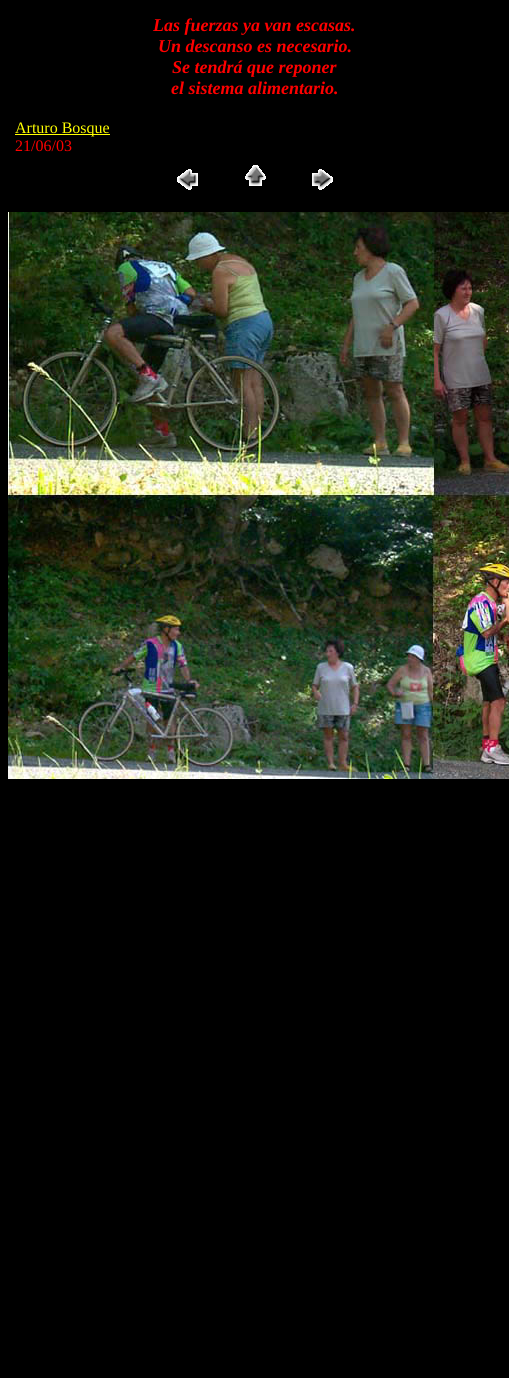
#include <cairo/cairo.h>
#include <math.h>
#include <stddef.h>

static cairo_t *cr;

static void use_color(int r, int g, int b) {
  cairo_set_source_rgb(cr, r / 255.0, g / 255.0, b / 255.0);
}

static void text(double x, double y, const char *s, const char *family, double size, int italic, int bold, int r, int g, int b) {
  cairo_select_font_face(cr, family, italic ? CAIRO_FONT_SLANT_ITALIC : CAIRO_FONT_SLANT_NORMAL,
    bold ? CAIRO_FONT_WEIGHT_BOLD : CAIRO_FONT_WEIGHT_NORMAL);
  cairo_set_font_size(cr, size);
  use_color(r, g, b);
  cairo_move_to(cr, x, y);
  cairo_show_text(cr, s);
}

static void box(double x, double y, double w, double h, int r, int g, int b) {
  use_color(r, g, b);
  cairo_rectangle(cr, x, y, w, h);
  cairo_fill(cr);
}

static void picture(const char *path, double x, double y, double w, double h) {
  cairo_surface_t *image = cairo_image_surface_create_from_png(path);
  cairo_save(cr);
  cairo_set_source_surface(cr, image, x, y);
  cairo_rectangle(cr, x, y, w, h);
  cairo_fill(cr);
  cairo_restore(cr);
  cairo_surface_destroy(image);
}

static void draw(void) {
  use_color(0, 0, 0);
  cairo_paint(cr);
  box(15, 134, 95, 1, 255, 255, 0);
  picture("img_01.png", 177, 169, 21, 21);
  picture("img_02.png", 245, 165, 21, 21);
  picture("img_03.png", 312, 169, 21, 21);
  picture("img_04.png", 8, 212, 501, 567);
  text(153, 31, "Las fuerzas ya van escasas.", "Liberation Serif", 18, 1, 1, 255, 0, 0);
  text(158, 52, "Un descanso es necesario.", "Liberation Serif", 18, 1, 1, 255, 0, 0);
  text(172, 73, "Se tendrá que reponer", "Liberation Serif", 18, 1, 1, 255, 0, 0);
  text(171, 94, "el sistema alimentario.", "Liberation Serif", 18, 1, 1, 255, 0, 0);
  text(15, 133, "Arturo Bosque", "Liberation Serif", 16, 0, 0, 255, 255, 0);
  text(15, 151, "21/06/03", "Liberation Serif", 16, 0, 0, 255, 0, 0);
}

int main(void) {
  cairo_surface_t *surface = cairo_image_surface_create(CAIRO_FORMAT_RGB24, 509, 1378);
  cr = cairo_create(surface);
  cairo_font_options_t *options = cairo_font_options_create();
  cairo_font_options_set_hint_metrics(options, CAIRO_HINT_METRICS_OFF);
  cairo_font_options_set_hint_style(options, CAIRO_HINT_STYLE_NONE);
  cairo_set_font_options(cr, options);
  cairo_set_miter_limit(cr, 4);
  draw();
  cairo_surface_write_to_png(surface, "out.png");
  cairo_font_options_destroy(options);
  cairo_destroy(cr);
  cairo_surface_destroy(surface);
  return 0;
}
